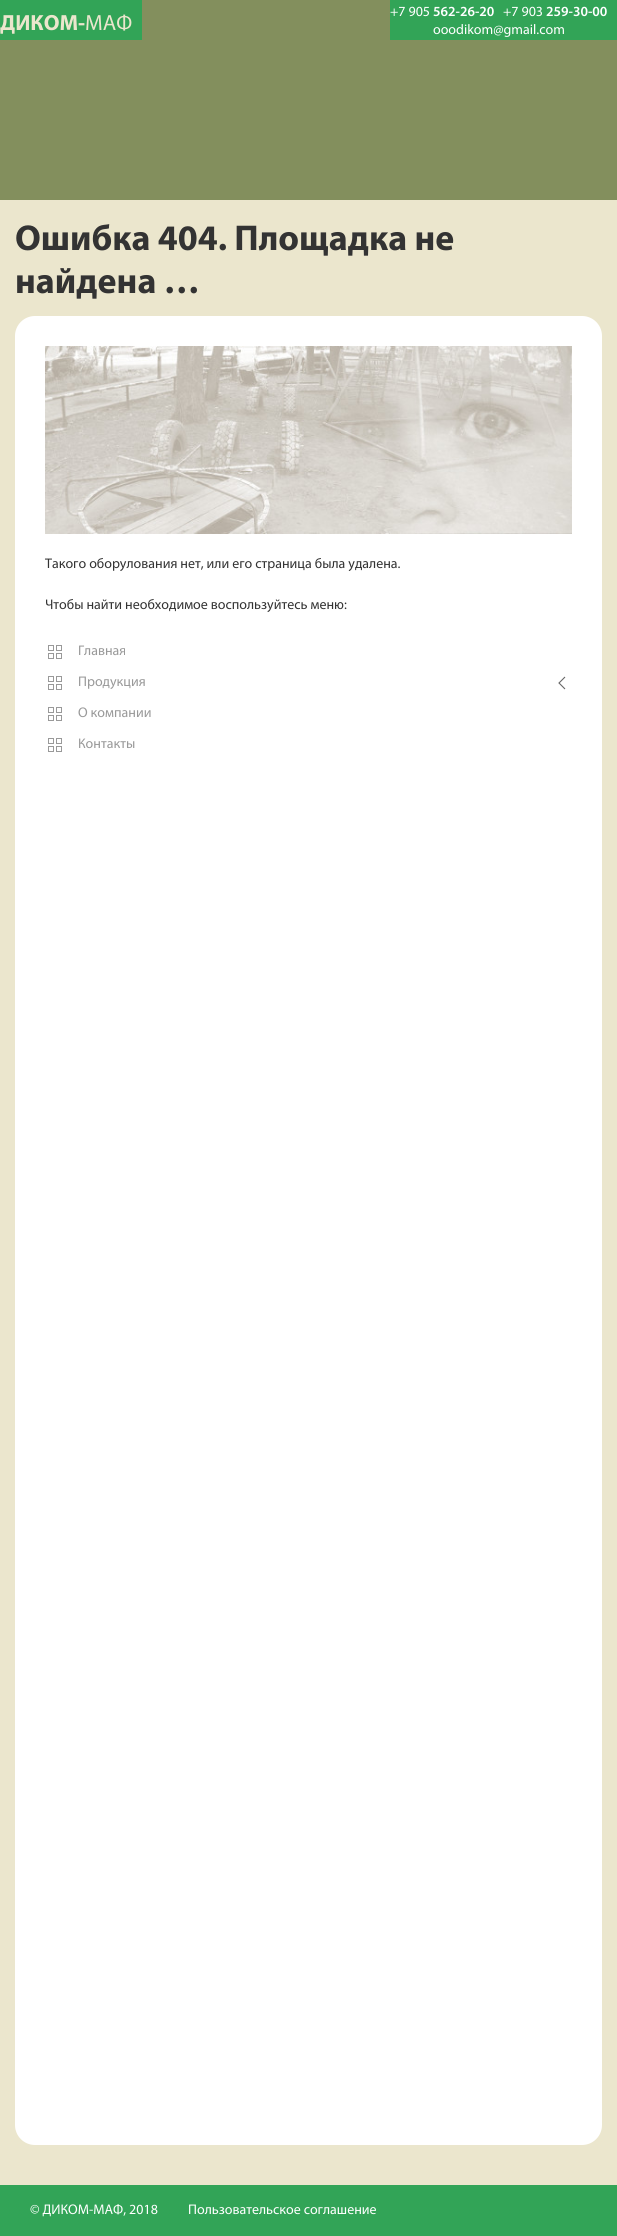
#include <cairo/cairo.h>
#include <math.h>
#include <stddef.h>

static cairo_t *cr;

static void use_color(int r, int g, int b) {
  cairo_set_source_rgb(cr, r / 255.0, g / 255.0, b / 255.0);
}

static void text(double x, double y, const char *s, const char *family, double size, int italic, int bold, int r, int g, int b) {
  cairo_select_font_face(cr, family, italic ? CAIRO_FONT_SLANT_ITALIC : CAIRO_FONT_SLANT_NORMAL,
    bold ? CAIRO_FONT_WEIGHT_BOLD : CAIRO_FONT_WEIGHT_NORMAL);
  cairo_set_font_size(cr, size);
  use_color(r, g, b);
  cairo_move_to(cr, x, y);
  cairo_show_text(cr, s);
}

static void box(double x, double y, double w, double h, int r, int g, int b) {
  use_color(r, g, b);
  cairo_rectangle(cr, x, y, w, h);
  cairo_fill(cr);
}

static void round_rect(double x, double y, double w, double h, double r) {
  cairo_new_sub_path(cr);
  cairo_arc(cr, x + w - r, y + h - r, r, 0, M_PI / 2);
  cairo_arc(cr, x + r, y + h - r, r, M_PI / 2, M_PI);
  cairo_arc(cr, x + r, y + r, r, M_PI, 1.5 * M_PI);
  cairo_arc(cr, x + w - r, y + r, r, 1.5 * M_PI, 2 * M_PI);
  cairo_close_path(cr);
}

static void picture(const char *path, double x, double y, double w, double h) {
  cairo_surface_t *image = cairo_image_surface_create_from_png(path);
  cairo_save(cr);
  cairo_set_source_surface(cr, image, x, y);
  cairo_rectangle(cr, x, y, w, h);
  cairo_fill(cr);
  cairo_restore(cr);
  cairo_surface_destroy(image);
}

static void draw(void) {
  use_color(235, 230, 205);
  cairo_paint(cr);
  box(0, 0, 617, 200, 131, 143, 93);
  box(0, 0, 142, 40, 50, 164, 87);
  box(390, 0, 227, 40, 50, 164, 87);
  use_color(255, 255, 255);
  round_rect(15, 316, 587, 1829, 20);
  cairo_fill(cr);
  picture("img_01.png", 45, 346, 527, 188);
  picture("img_02.png", 48, 645, 14, 14);
  picture("img_02.png", 48, 676, 14, 14);
  cairo_new_path(cr);
  cairo_move_to(cr, 565, 677);
  cairo_line_to(cr, 559, 683);
  cairo_line_to(cr, 565, 689);
  use_color(102, 102, 102);
  cairo_set_line_width(cr, 1.1);
  cairo_stroke(cr);
  picture("img_02.png", 48, 707, 14, 14);
  picture("img_02.png", 48, 738, 14, 14);
  box(0, 2185, 617, 51, 50, 164, 87);
  text(0, 30, "ДИКОМ-", "Myriad", 22, 0, 1, 235, 230, 205);
  text(85, 30, "МАФ", "Myriad", 22, 0, 0, 235, 230, 205);
  text(390, 16, "+7 905", "Myriad", 14, 0, 0, 255, 255, 255);
  text(433, 16, "562-26-20", "Myriad SemiBold", 14, 0, 0, 255, 255, 255);
  text(503, 16, "+7 903", "Myriad", 14, 0, 0, 255, 255, 255);
  text(546, 16, "259-30-00", "Myriad SemiBold", 14, 0, 0, 255, 255, 255);
  text(433, 34, "ooodikom@gmail.com", "Myriad", 14, 0, 0, 255, 255, 255);
  text(15, 250, "Ошибка 404. Площадка не", "Myriad", 36, 0, 1, 51, 51, 51);
  text(15, 293, "найдена …", "Myriad", 36, 0, 1, 51, 51, 51);
  text(45, 568, "Такого оборулования нет, или его страница была удалена.", "Myriad", 14, 0, 0, 51, 51, 51);
  text(45, 609, "Чтобы найти необходимое воспользуйтесь меню:", "Myriad", 14, 0, 0, 51, 51, 51);
  text(78, 655, "Главная", "Myriad", 14, 0, 0, 153, 153, 153);
  text(78, 686, "Продукция", "Myriad", 14, 0, 0, 153, 153, 153);
  text(78, 717, "О компании", "Myriad", 14, 0, 0, 153, 153, 153);
  text(78, 748, "Контакты", "Myriad", 14, 0, 0, 153, 153, 153);
  text(30, 2214, "© ДИКОМ-МАФ, 2018", "Myriad", 14, 0, 0, 255, 255, 255);
  text(188, 2214, "Пользовательское соглашение", "Myriad", 14, 0, 0, 255, 255, 255);
}

int main(void) {
  cairo_surface_t *surface = cairo_image_surface_create(CAIRO_FORMAT_RGB24, 617, 2236);
  cr = cairo_create(surface);
  cairo_font_options_t *options = cairo_font_options_create();
  cairo_font_options_set_hint_metrics(options, CAIRO_HINT_METRICS_OFF);
  cairo_font_options_set_hint_style(options, CAIRO_HINT_STYLE_NONE);
  cairo_set_font_options(cr, options);
  cairo_set_miter_limit(cr, 4);
  draw();
  cairo_surface_write_to_png(surface, "out.png");
  cairo_font_options_destroy(options);
  cairo_destroy(cr);
  cairo_surface_destroy(surface);
  return 0;
}
